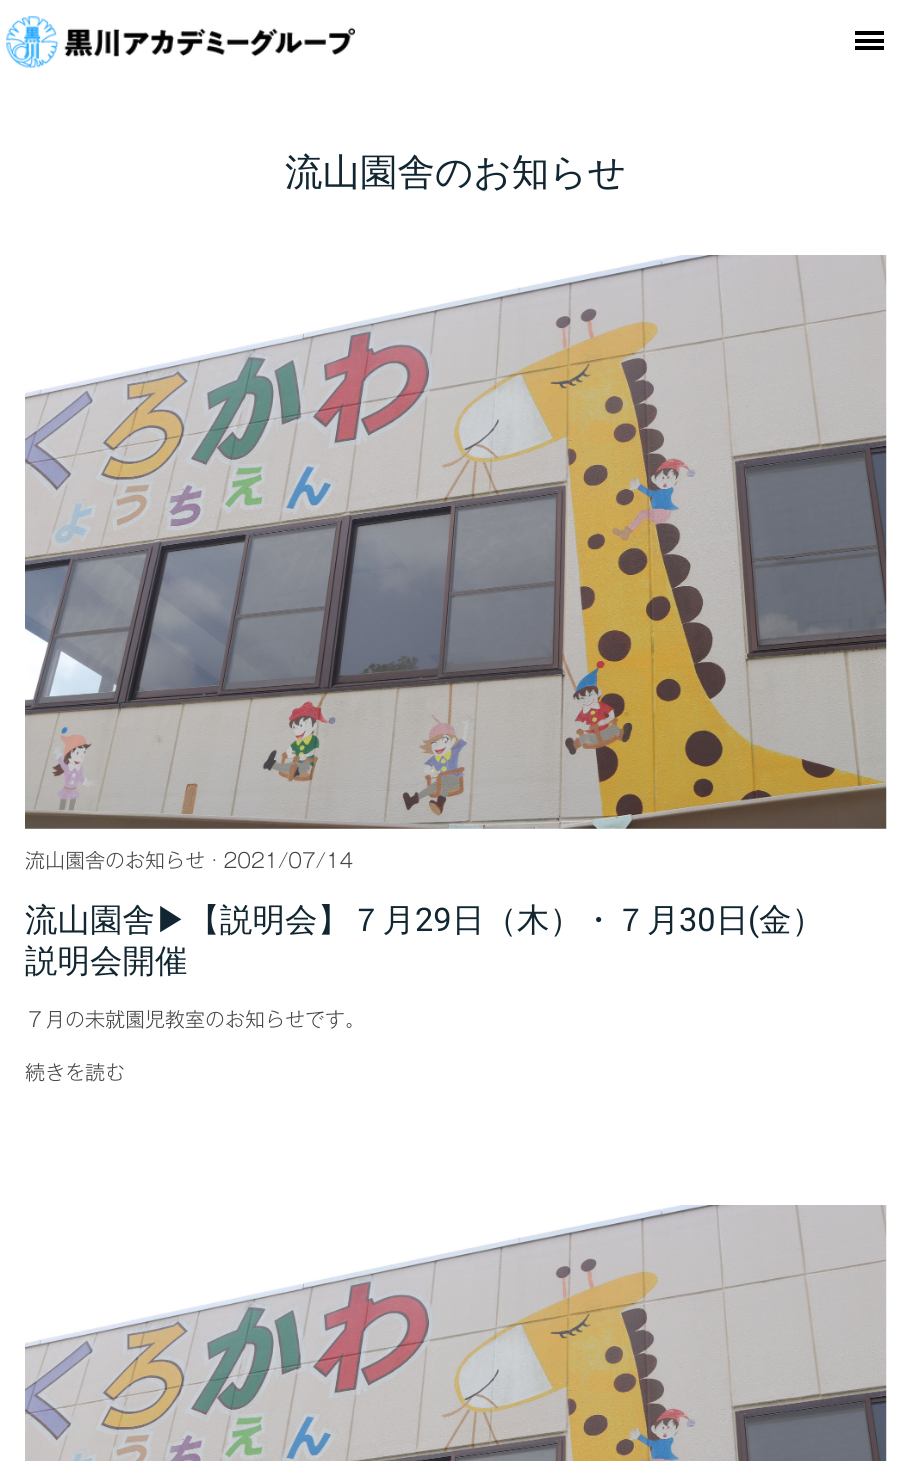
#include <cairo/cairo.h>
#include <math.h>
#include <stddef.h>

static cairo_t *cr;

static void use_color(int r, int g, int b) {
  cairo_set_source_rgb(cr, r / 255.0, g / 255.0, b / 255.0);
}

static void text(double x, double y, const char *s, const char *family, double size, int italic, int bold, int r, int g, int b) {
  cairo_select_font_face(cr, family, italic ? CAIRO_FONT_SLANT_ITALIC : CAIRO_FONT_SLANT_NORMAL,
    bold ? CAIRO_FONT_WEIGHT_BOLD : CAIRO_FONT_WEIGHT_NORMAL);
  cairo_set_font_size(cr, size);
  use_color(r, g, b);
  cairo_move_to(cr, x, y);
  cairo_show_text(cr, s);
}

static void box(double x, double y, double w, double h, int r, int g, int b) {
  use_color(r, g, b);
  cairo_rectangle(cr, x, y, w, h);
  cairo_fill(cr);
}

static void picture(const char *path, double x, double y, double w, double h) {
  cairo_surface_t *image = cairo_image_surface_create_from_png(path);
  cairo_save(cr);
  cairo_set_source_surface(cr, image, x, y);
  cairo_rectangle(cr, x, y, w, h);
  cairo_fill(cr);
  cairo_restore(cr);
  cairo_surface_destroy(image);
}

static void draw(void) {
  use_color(255, 255, 255);
  cairo_paint(cr);
  picture("img_01.png", 6, 16, 349, 52);
  box(855, 39, 29, 4, 0, 0, 0);
  box(855, 31, 29, 4, 0, 0, 0);
  box(855, 46, 29, 4, 0, 0, 0);
  picture("img_02.png", 25, 255, 862, 574);
  picture("img_03.png", 25, 1205, 862, 256);
  text(285, 185, "流山園舎のお知らせ", "WenQuanYi Zen Hei Medium", 37.5, 0, 0, 17, 38, 49);
  text(25, 868, "流山園舎のお知らせ · 2021/07/14", "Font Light", 20, 0, 0, 68, 68, 68);
  text(25, 931, "流山園舎▶【説明会】７月", "WenQuanYi Zen Hei Medium", 32.5, 0, 0, 17, 38, 49);
  text(415, 931, "29", "Roboto", 32.5, 0, 0, 17, 38, 49);
  text(452, 931, "日（木）・７月", "WenQuanYi Zen Hei Medium", 32.5, 0, 0, 17, 38, 49);
  text(679, 931, "30", "Roboto", 32.5, 0, 0, 17, 38, 49);
  text(716, 931, "日", "WenQuanYi Zen Hei Medium", 32.5, 0, 0, 17, 38, 49);
  text(748, 931, "(", "Roboto", 32.5, 0, 0, 17, 38, 49);
  text(759, 931, "金）", "WenQuanYi Zen Hei Medium", 32.5, 0, 0, 17, 38, 49);
  text(25, 972, "説明会開催", "WenQuanYi Zen Hei Medium", 32.5, 0, 0, 17, 38, 49);
  text(25, 1027, "７月の未就園児教室のお知らせです。", "Font Light", 20, 0, 0, 68, 68, 68);
  text(25, 1080, "続きを読む", "Font Light", 20, 0, 0, 68, 68, 68);
}

int main(void) {
  cairo_surface_t *surface = cairo_image_surface_create(CAIRO_FORMAT_RGB24, 911, 1461);
  cr = cairo_create(surface);
  cairo_font_options_t *options = cairo_font_options_create();
  cairo_font_options_set_hint_metrics(options, CAIRO_HINT_METRICS_OFF);
  cairo_font_options_set_hint_style(options, CAIRO_HINT_STYLE_NONE);
  cairo_set_font_options(cr, options);
  cairo_set_miter_limit(cr, 4);
  draw();
  cairo_surface_write_to_png(surface, "out.png");
  cairo_font_options_destroy(options);
  cairo_destroy(cr);
  cairo_surface_destroy(surface);
  return 0;
}
